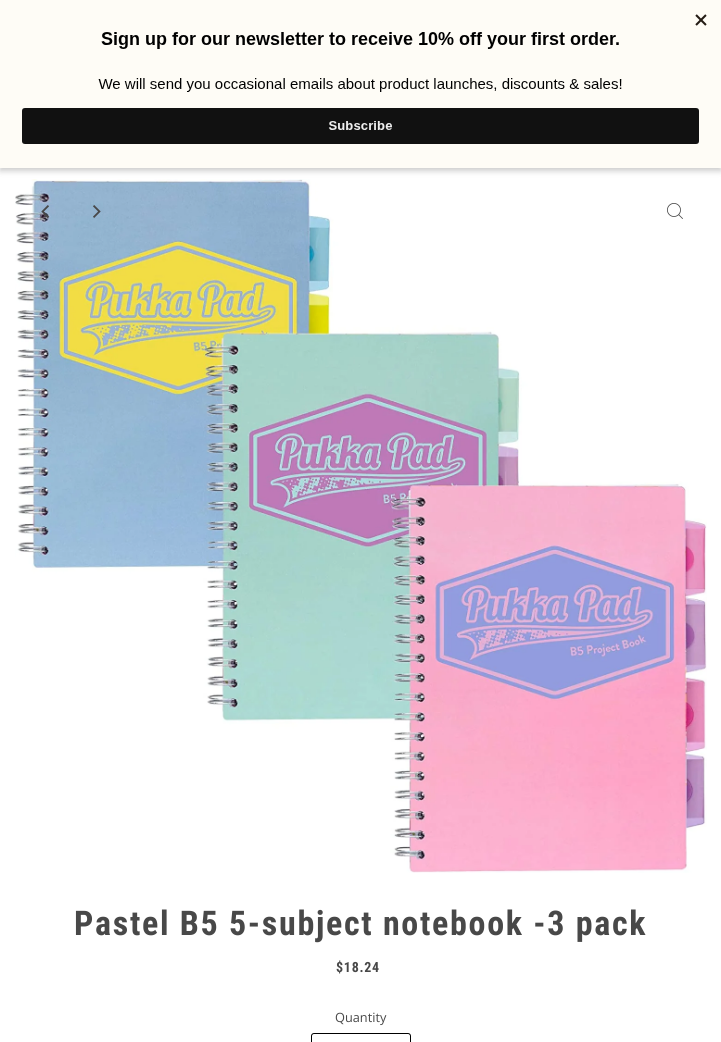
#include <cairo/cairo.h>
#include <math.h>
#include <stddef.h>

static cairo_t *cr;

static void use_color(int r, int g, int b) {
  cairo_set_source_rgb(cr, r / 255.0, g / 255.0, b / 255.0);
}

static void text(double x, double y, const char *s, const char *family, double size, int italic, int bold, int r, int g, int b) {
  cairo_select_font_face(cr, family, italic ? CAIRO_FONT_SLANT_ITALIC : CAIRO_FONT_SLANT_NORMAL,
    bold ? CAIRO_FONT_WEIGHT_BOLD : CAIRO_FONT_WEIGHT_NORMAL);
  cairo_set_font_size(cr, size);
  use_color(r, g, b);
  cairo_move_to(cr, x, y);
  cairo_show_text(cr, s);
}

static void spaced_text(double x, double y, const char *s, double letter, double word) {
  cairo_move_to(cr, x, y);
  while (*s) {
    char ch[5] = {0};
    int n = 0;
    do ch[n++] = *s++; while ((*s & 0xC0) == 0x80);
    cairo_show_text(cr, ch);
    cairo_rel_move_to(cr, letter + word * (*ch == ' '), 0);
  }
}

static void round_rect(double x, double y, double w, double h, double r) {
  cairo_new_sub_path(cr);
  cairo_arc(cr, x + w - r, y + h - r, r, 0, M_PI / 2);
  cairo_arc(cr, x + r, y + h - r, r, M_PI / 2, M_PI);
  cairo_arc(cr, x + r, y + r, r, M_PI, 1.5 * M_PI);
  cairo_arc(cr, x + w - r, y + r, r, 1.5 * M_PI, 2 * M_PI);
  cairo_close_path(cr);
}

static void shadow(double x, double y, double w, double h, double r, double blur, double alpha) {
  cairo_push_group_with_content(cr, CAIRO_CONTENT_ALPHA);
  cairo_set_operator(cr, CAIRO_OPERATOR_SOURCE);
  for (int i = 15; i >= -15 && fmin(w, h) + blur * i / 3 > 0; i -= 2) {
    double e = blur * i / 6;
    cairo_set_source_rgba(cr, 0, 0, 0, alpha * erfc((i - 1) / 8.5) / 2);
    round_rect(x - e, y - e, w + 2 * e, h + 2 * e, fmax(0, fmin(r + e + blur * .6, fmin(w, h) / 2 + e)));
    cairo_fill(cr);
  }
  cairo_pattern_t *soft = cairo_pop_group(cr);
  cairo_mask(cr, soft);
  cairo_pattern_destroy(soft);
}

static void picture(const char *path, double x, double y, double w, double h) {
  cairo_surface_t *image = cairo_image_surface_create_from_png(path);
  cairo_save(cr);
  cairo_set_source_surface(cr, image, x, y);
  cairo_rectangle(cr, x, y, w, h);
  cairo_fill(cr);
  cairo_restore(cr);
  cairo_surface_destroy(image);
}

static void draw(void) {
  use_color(255, 255, 255);
  cairo_paint(cr);
  picture("img_02.png", 15, 179, 692, 694);
  use_color(0, 0, 0);
  shadow(0, 3, 721, 168, 0, 3, 0.2);
  picture("img_01.png", 0, 0, 721, 168);
  picture("img_03.png", 667, 203, 16, 16);
  picture("img_04.png", 41, 205, 8, 13);
  picture("img_05.png", 93, 205, 8, 13);
  round_rect(311.5, 1033.5, 99, 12, 2.5);
  use_color(0, 0, 0);
  cairo_set_line_width(cr, 1);
  cairo_stroke(cr);
  cairo_select_font_face(cr, "Roboto Condensed", CAIRO_FONT_SLANT_NORMAL, CAIRO_FONT_WEIGHT_BOLD);
  cairo_set_font_size(cr, 34);
  use_color(72, 72, 72);
  spaced_text(74, 935, "Pastel B5 5-subject notebook -3 pack", 1.7, 0);
  cairo_set_font_size(cr, 14);
  spaced_text(336, 972, "$18.24", 0.75, 0);
  text(335, 1022, "Quantity", "Open Sans", 12.75, 0, 0, 72, 72, 72);
}

int main(void) {
  cairo_surface_t *surface = cairo_image_surface_create(CAIRO_FORMAT_RGB24, 721, 1042);
  cr = cairo_create(surface);
  cairo_font_options_t *options = cairo_font_options_create();
  cairo_font_options_set_hint_metrics(options, CAIRO_HINT_METRICS_OFF);
  cairo_font_options_set_hint_style(options, CAIRO_HINT_STYLE_NONE);
  cairo_set_font_options(cr, options);
  cairo_set_miter_limit(cr, 4);
  draw();
  cairo_surface_write_to_png(surface, "out.png");
  cairo_font_options_destroy(options);
  cairo_destroy(cr);
  cairo_surface_destroy(surface);
  return 0;
}
